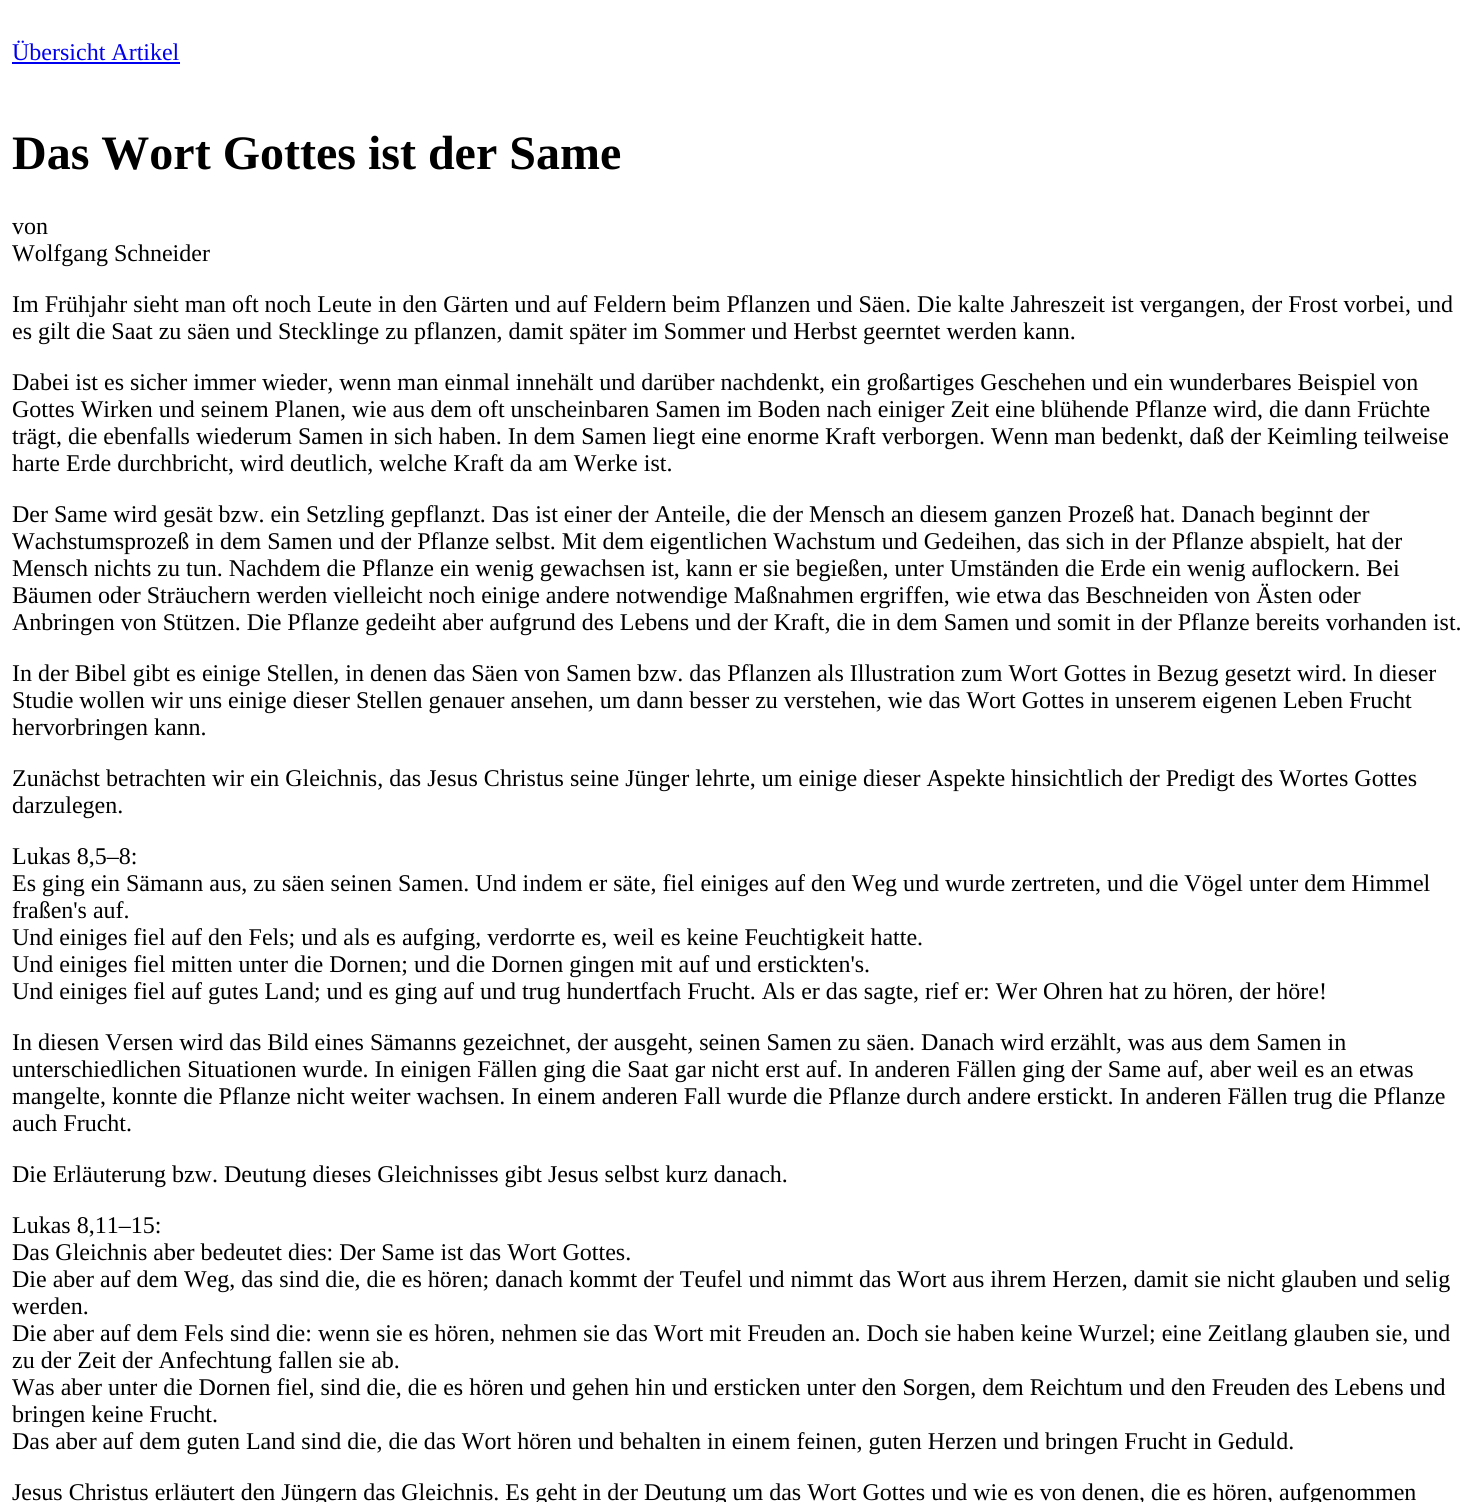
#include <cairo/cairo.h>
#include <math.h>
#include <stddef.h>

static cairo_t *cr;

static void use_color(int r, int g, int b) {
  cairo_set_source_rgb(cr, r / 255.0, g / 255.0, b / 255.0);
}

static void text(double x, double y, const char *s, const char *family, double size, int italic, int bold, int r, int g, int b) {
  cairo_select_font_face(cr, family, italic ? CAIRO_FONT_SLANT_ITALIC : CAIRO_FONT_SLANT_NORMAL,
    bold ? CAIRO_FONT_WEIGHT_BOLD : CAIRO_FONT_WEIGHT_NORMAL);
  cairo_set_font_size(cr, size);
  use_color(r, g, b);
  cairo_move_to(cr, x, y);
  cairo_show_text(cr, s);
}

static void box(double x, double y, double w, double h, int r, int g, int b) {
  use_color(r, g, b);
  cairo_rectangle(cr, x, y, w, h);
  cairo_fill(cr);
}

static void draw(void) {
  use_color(255, 255, 255);
  cairo_paint(cr);
  box(12, 62, 168, 2, 0, 0, 238);
  text(12, 60, "Übersicht Artikel", "Liberation Serif", 24, 0, 0, 0, 0, 238);
  text(12, 169, "Das Wort Gottes ist der Same", "Liberation Serif", 48, 0, 1, 0, 0, 0);
  text(12, 234, "von", "Liberation Serif", 24, 0, 0, 0, 0, 0);
  text(12, 261, "Wolfgang Schneider", "Liberation Serif", 24, 0, 0, 0, 0, 0);
  text(12, 312, "Im Frühjahr sieht man oft noch Leute in den Gärten und auf Feldern beim Pflanzen und Säen. Die kalte Jahreszeit ist vergangen, der Frost vorbei, und", "Liberation Serif", 24, 0, 0, 0, 0, 0);
  text(12, 339, "es gilt die Saat zu säen und Stecklinge zu pflanzen, damit später im Sommer und Herbst geerntet werden kann.", "Liberation Serif", 24, 0, 0, 0, 0, 0);
  text(12, 390, "Dabei ist es sicher immer wieder, wenn man einmal innehält und darüber nachdenkt, ein großartiges Geschehen und ein wunderbares Beispiel von", "Liberation Serif", 24, 0, 0, 0, 0, 0);
  text(12, 417, "Gottes Wirken und seinem Planen, wie aus dem oft unscheinbaren Samen im Boden nach einiger Zeit eine blühende Pflanze wird, die dann Früchte", "Liberation Serif", 24, 0, 0, 0, 0, 0);
  text(12, 444, "trägt, die ebenfalls wiederum Samen in sich haben. In dem Samen liegt eine enorme Kraft verborgen. Wenn man bedenkt, daß der Keimling teilweise", "Liberation Serif", 24, 0, 0, 0, 0, 0);
  text(12, 471, "harte Erde durchbricht, wird deutlich, welche Kraft da am Werke ist.", "Liberation Serif", 24, 0, 0, 0, 0, 0);
  text(12, 522, "Der Same wird gesät bzw. ein Setzling gepflanzt. Das ist einer der Anteile, die der Mensch an diesem ganzen Prozeß hat. Danach beginnt der", "Liberation Serif", 24, 0, 0, 0, 0, 0);
  text(12, 549, "Wachstumsprozeß in dem Samen und der Pflanze selbst. Mit dem eigentlichen Wachstum und Gedeihen, das sich in der Pflanze abspielt, hat der", "Liberation Serif", 24, 0, 0, 0, 0, 0);
  text(12, 576, "Mensch nichts zu tun. Nachdem die Pflanze ein wenig gewachsen ist, kann er sie begießen, unter Umständen die Erde ein wenig auflockern. Bei", "Liberation Serif", 24, 0, 0, 0, 0, 0);
  text(12, 603, "Bäumen oder Sträuchern werden vielleicht noch einige andere notwendige Maßnahmen ergriffen, wie etwa das Beschneiden von Ästen oder", "Liberation Serif", 24, 0, 0, 0, 0, 0);
  text(12, 630, "Anbringen von Stützen. Die Pflanze gedeiht aber aufgrund des Lebens und der Kraft, die in dem Samen und somit in der Pflanze bereits vorhanden ist.", "Liberation Serif", 24, 0, 0, 0, 0, 0);
  text(12, 681, "In der Bibel gibt es einige Stellen, in denen das Säen von Samen bzw. das Pflanzen als Illustration zum Wort Gottes in Bezug gesetzt wird. In dieser", "Liberation Serif", 24, 0, 0, 0, 0, 0);
  text(12, 708, "Studie wollen wir uns einige dieser Stellen genauer ansehen, um dann besser zu verstehen, wie das Wort Gottes in unserem eigenen Leben Frucht", "Liberation Serif", 24, 0, 0, 0, 0, 0);
  text(12, 735, "hervorbringen kann.", "Liberation Serif", 24, 0, 0, 0, 0, 0);
  text(12, 786, "Zunächst betrachten wir ein Gleichnis, das Jesus Christus seine Jünger lehrte, um einige dieser Aspekte hinsichtlich der Predigt des Wortes Gottes", "Liberation Serif", 24, 0, 0, 0, 0, 0);
  text(12, 813, "darzulegen.", "Liberation Serif", 24, 0, 0, 0, 0, 0);
  text(12, 864, "Lukas 8,5–8:", "Liberation Serif", 24, 0, 0, 0, 0, 0);
  text(12, 891, "Es ging ein Sämann aus, zu säen seinen Samen. Und indem er säte, fiel einiges auf den Weg und wurde zertreten, und die Vögel unter dem Himmel", "Liberation Serif", 24, 0, 0, 0, 0, 0);
  text(12, 918, "fraßen's auf.", "Liberation Serif", 24, 0, 0, 0, 0, 0);
  text(12, 945, "Und einiges fiel auf den Fels; und als es aufging, verdorrte es, weil es keine Feuchtigkeit hatte.", "Liberation Serif", 24, 0, 0, 0, 0, 0);
  text(12, 972, "Und einiges fiel mitten unter die Dornen; und die Dornen gingen mit auf und erstickten's.", "Liberation Serif", 24, 0, 0, 0, 0, 0);
  text(12, 999, "Und einiges fiel auf gutes Land; und es ging auf und trug hundertfach Frucht. Als er das sagte, rief er: Wer Ohren hat zu hören, der höre!", "Liberation Serif", 24, 0, 0, 0, 0, 0);
  text(12, 1050, "In diesen Versen wird das Bild eines Sämanns gezeichnet, der ausgeht, seinen Samen zu säen. Danach wird erzählt, was aus dem Samen in", "Liberation Serif", 24, 0, 0, 0, 0, 0);
  text(12, 1077, "unterschiedlichen Situationen wurde. In einigen Fällen ging die Saat gar nicht erst auf. In anderen Fällen ging der Same auf, aber weil es an etwas", "Liberation Serif", 24, 0, 0, 0, 0, 0);
  text(12, 1104, "mangelte, konnte die Pflanze nicht weiter wachsen. In einem anderen Fall wurde die Pflanze durch andere erstickt. In anderen Fällen trug die Pflanze", "Liberation Serif", 24, 0, 0, 0, 0, 0);
  text(12, 1131, "auch Frucht.", "Liberation Serif", 24, 0, 0, 0, 0, 0);
  text(12, 1182, "Die Erläuterung bzw. Deutung dieses Gleichnisses gibt Jesus selbst kurz danach.", "Liberation Serif", 24, 0, 0, 0, 0, 0);
  text(12, 1233, "Lukas 8,11–15:", "Liberation Serif", 24, 0, 0, 0, 0, 0);
  text(12, 1260, "Das Gleichnis aber bedeutet dies: Der Same ist das Wort Gottes.", "Liberation Serif", 24, 0, 0, 0, 0, 0);
  text(12, 1287, "Die aber auf dem Weg, das sind die, die es hören; danach kommt der Teufel und nimmt das Wort aus ihrem Herzen, damit sie nicht glauben und selig", "Liberation Serif", 24, 0, 0, 0, 0, 0);
  text(12, 1314, "werden.", "Liberation Serif", 24, 0, 0, 0, 0, 0);
  text(12, 1341, "Die aber auf dem Fels sind die: wenn sie es hören, nehmen sie das Wort mit Freuden an. Doch sie haben keine Wurzel; eine Zeitlang glauben sie, und", "Liberation Serif", 24, 0, 0, 0, 0, 0);
  text(12, 1368, "zu der Zeit der Anfechtung fallen sie ab.", "Liberation Serif", 24, 0, 0, 0, 0, 0);
  text(12, 1395, "Was aber unter die Dornen fiel, sind die, die es hören und gehen hin und ersticken unter den Sorgen, dem Reichtum und den Freuden des Lebens und", "Liberation Serif", 24, 0, 0, 0, 0, 0);
  text(12, 1422, "bringen keine Frucht.", "Liberation Serif", 24, 0, 0, 0, 0, 0);
  text(12, 1449, "Das aber auf dem guten Land sind die, die das Wort hören und behalten in einem feinen, guten Herzen und bringen Frucht in Geduld.", "Liberation Serif", 24, 0, 0, 0, 0, 0);
  text(12, 1500, "Jesus Christus erläutert den Jüngern das Gleichnis. Es geht in der Deutung um das Wort Gottes und wie es von denen, die es hören, aufgenommen", "Liberation Serif", 24, 0, 0, 0, 0, 0);
}

int main(void) {
  cairo_surface_t *surface = cairo_image_surface_create(CAIRO_FORMAT_RGB24, 1476, 1502);
  cr = cairo_create(surface);
  cairo_font_options_t *options = cairo_font_options_create();
  cairo_font_options_set_hint_metrics(options, CAIRO_HINT_METRICS_OFF);
  cairo_font_options_set_hint_style(options, CAIRO_HINT_STYLE_NONE);
  cairo_set_font_options(cr, options);
  cairo_set_miter_limit(cr, 4);
  draw();
  cairo_surface_write_to_png(surface, "out.png");
  cairo_font_options_destroy(options);
  cairo_destroy(cr);
  cairo_surface_destroy(surface);
  return 0;
}
